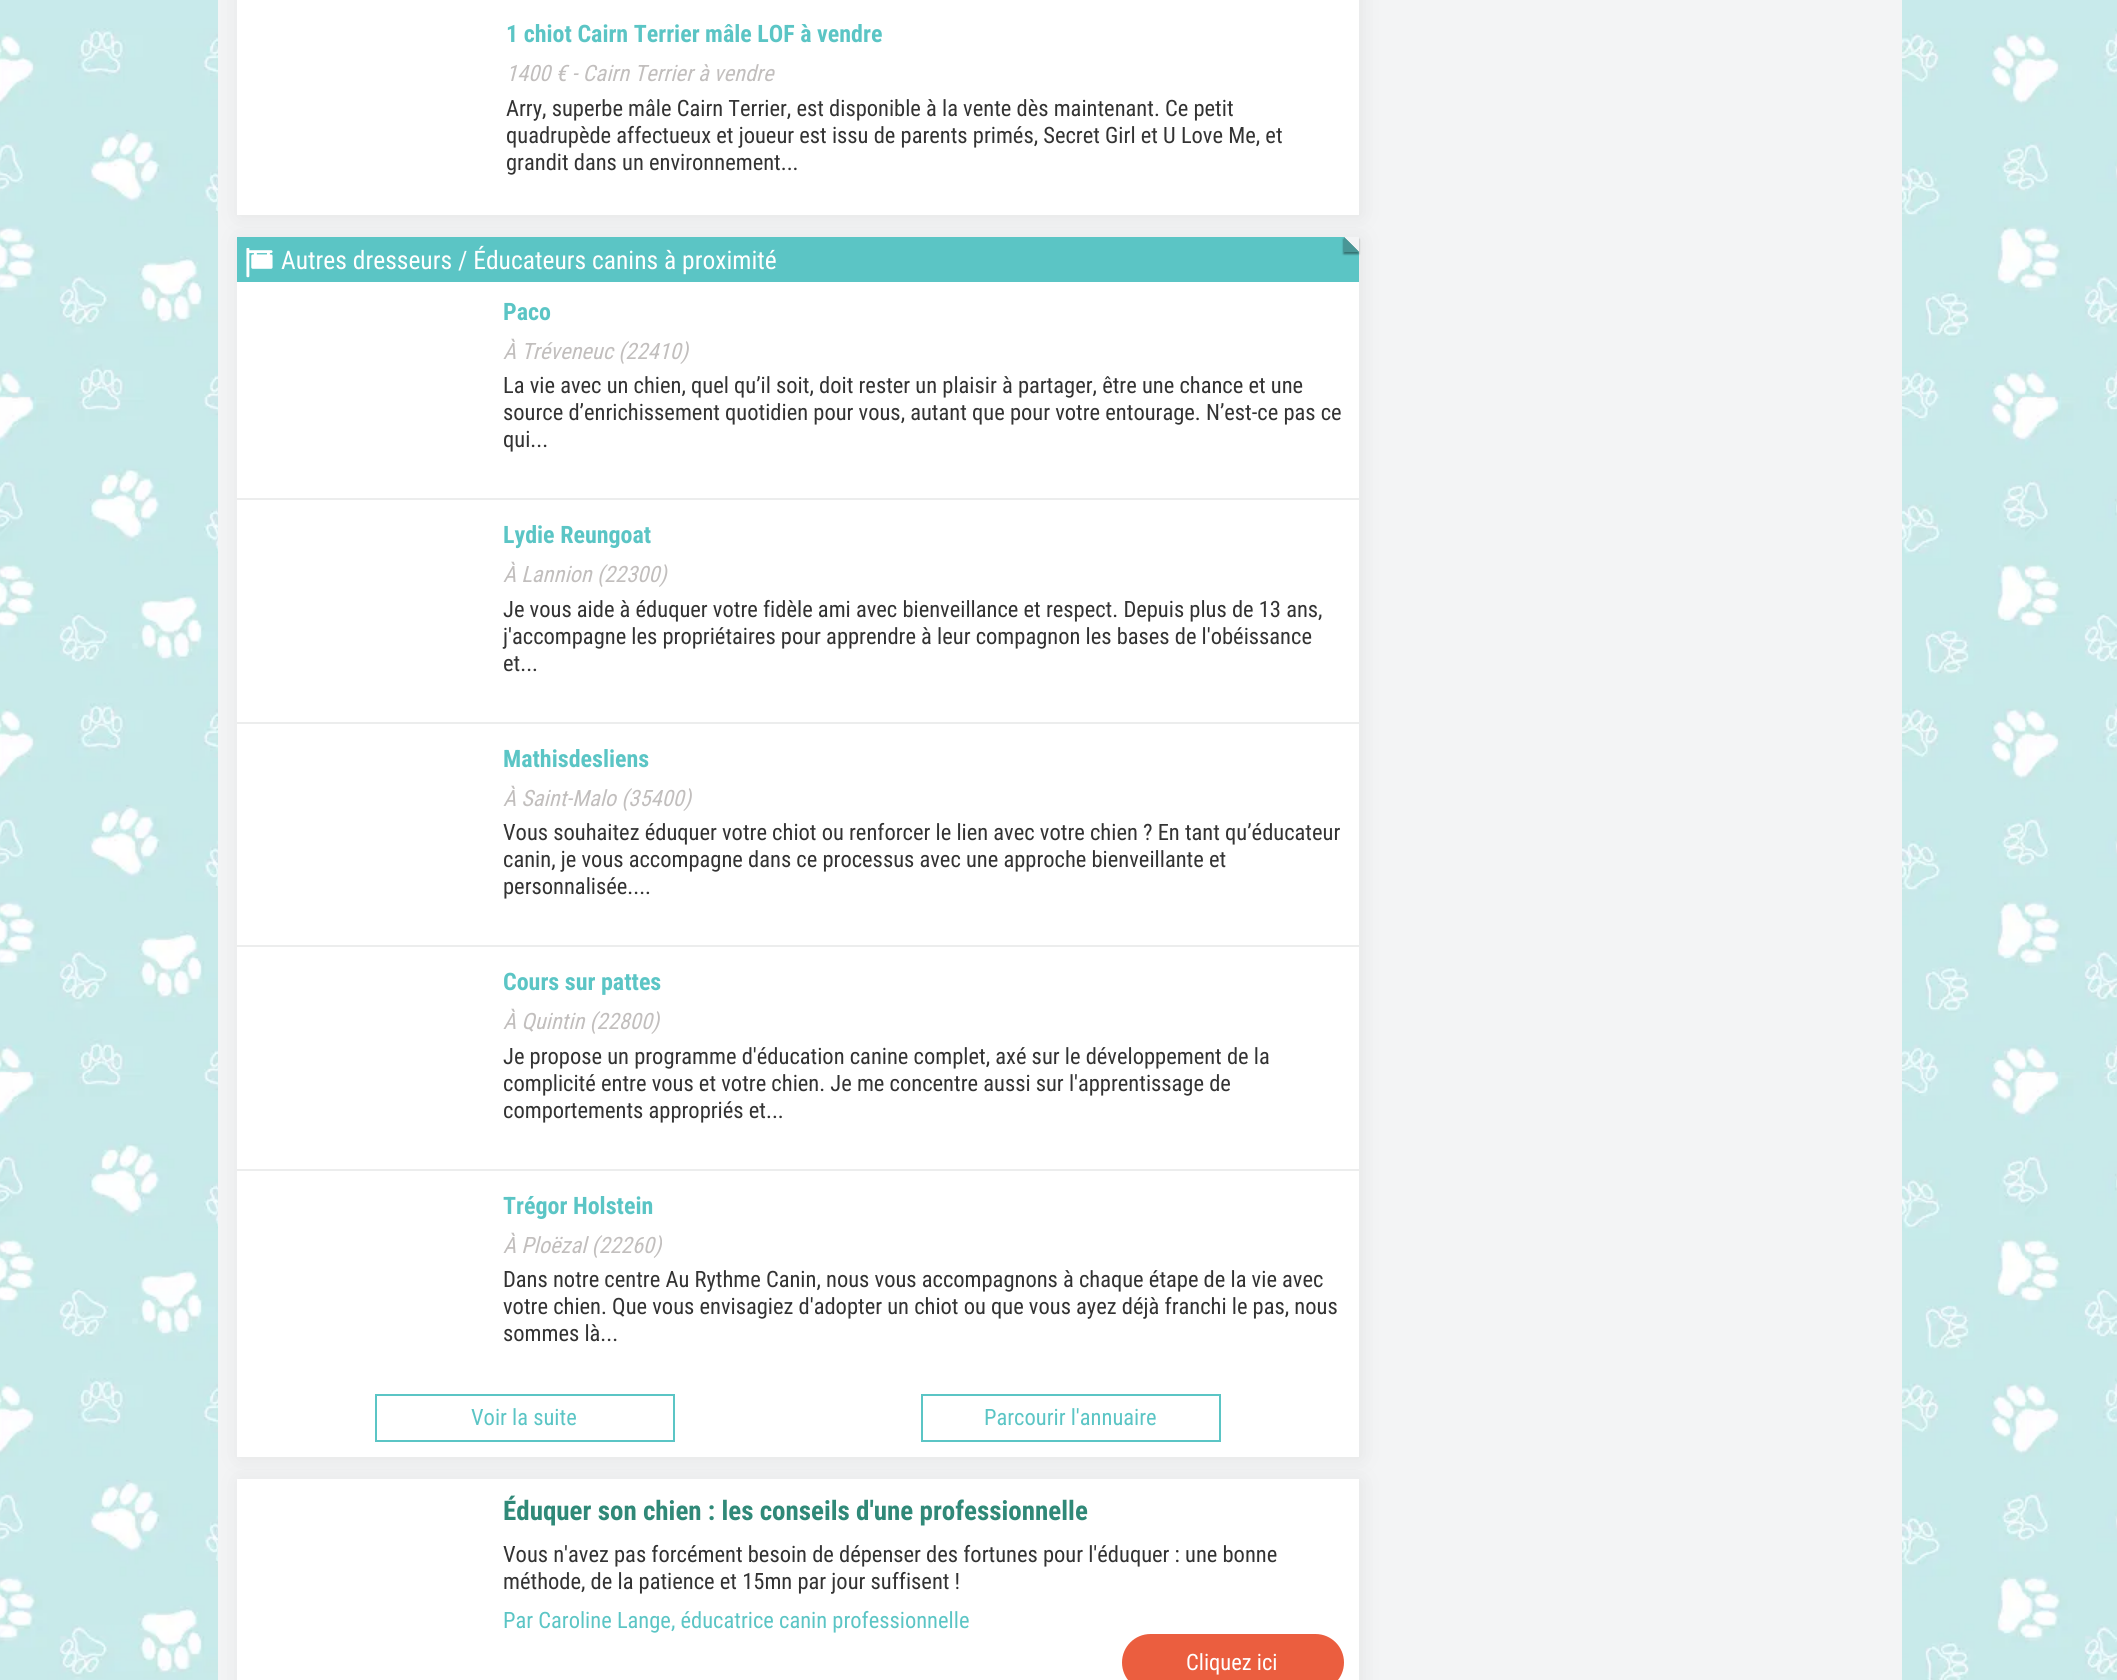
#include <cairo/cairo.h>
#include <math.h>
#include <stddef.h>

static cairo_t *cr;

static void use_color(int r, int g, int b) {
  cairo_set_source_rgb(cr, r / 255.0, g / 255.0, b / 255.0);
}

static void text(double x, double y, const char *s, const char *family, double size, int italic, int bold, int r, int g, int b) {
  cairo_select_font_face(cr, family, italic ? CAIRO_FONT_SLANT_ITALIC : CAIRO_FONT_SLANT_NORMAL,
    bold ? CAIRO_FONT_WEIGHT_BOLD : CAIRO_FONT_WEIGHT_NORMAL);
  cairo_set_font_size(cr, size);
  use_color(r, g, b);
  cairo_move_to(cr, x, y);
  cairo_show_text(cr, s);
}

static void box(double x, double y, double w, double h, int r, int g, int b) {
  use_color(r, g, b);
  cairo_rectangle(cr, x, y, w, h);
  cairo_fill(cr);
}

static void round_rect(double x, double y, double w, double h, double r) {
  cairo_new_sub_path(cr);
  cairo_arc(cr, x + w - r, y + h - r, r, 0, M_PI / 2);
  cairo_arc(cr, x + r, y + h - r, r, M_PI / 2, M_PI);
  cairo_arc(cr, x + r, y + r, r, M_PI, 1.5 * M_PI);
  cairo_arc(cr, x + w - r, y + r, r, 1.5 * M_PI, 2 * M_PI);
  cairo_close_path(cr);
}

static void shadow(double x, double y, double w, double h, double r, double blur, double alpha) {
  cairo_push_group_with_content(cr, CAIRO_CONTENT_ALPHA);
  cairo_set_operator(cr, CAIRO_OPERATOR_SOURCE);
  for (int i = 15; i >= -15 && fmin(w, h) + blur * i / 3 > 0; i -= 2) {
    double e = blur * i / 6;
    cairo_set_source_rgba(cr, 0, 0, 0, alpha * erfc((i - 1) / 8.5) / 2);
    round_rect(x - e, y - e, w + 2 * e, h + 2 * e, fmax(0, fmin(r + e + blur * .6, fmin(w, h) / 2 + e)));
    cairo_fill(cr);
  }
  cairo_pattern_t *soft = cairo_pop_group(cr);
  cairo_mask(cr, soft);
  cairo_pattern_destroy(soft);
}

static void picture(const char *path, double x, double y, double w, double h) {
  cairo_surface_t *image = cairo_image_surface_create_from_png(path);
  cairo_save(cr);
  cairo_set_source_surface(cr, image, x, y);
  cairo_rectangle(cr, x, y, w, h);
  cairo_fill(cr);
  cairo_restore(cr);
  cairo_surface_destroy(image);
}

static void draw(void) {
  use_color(200, 234, 235);
  cairo_paint(cr);
  picture("img_01.png", 0, 28, 2117, 1652);
  box(218, 0, 1684, 1680, 243, 244, 245);
  use_color(72, 72, 72);
  shadow(239, -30, 1122, 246, 0, 10, 0.1);
  box(237, 0, 1122, 215, 255, 255, 255);
  use_color(72, 72, 72);
  shadow(239, 239, 1122, 1219, 0, 10, 0.1);
  box(237, 282, 1122, 1175, 255, 255, 255);
  box(237, 237, 1122, 45, 91, 197, 197);
  picture("img_02.png", 246, 248, 27, 30);
  use_color(0, 0, 0);
  shadow(1343, 239, 15, 15, 0, 1, 0.2);
  shadow(1344, 239, 15, 15, 0, 1, 0.3);
  use_color(243, 244, 245);
  cairo_new_path(cr);
  cairo_move_to(cr, 1359, 237);
  cairo_line_to(cr, 1359, 252);
  cairo_line_to(cr, 1344, 237);
  cairo_close_path(cr);
  cairo_fill(cr);
  use_color(73, 150, 150);
  cairo_new_path(cr);
  cairo_move_to(cr, 1359, 252);
  cairo_line_to(cr, 1344, 252);
  cairo_line_to(cr, 1344, 237);
  cairo_close_path(cr);
  cairo_fill(cr);
  box(237, 498, 1122, 2, 236, 237, 237);
  box(237, 722, 1122, 2, 236, 237, 237);
  box(237, 945, 1122, 2, 236, 237, 237);
  box(237, 1169, 1122, 2, 236, 237, 237);
  cairo_rectangle(cr, 376, 1395, 298, 46);
  use_color(91, 197, 197);
  cairo_stroke(cr);
  cairo_rectangle(cr, 922, 1395, 298, 46);
  cairo_stroke(cr);
  use_color(72, 72, 72);
  shadow(239, 1481, 1122, 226, 0, 10, 0.1);
  box(237, 1479, 1122, 201, 255, 255, 255);
  use_color(235, 94, 63);
  round_rect(1122, 1634, 222, 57, 28.5);
  cairo_fill(cr);
  text(506, 42, "1 chiot Cairn Terrier mâle LOF à vendre", "Roboto", 24, 0, 1, 91, 197, 197);
  text(506, 81, "1400 € - Cairn Terrier à vendre", "Roboto Condensed", 22.5, 1, 0, 194, 191, 190);
  text(506, 116, "Arry, superbe mâle Cairn Terrier, est disponible à la vente dès maintenant. Ce petit", "Roboto Condensed", 22.5, 0, 0, 51, 51, 51);
  text(506, 143, "quadrupède affectueux et joueur est issu de parents primés, Secret Girl et U Love Me, et", "Roboto Condensed", 22.5, 0, 0, 51, 51, 51);
  text(506, 170, "grandit dans un environnement...", "Roboto Condensed", 22.5, 0, 0, 51, 51, 51);
  text(281, 269, "Autres dresseurs / Éducateurs canins à proximité", "Roboto Condensed", 25.5, 0, 0, 255, 255, 255);
  text(503, 320, "Paco", "Roboto", 24, 0, 1, 91, 197, 197);
  text(503, 359, "À Tréveneuc (22410)", "Roboto Condensed", 22.5, 1, 0, 194, 191, 190);
  text(503, 393, "La vie avec un chien, quel qu’il soit, doit rester un plaisir à partager, être une chance et une", "Roboto Condensed", 22.5, 0, 0, 51, 51, 51);
  text(503, 420, "source d’enrichissement quotidien pour vous, autant que pour votre entourage. N’est-ce pas ce", "Roboto Condensed", 22.5, 0, 0, 51, 51, 51);
  text(503, 447, "qui...", "Roboto Condensed", 22.5, 0, 0, 51, 51, 51);
  text(503, 543, "Lydie Reungoat", "Roboto", 24, 0, 1, 91, 197, 197);
  text(503, 582, "À Lannion (22300)", "Roboto Condensed", 22.5, 1, 0, 194, 191, 190);
  text(503, 617, "Je vous aide à éduquer votre fidèle ami avec bienveillance et respect. Depuis plus de 13 ans,", "Roboto Condensed", 22.5, 0, 0, 51, 51, 51);
  text(503, 644, "j'accompagne les propriétaires pour apprendre à leur compagnon les bases de l'obéissance", "Roboto Condensed", 22.5, 0, 0, 51, 51, 51);
  text(503, 671, "et...", "Roboto Condensed", 22.5, 0, 0, 51, 51, 51);
  text(503, 767, "Mathisdesliens", "Roboto", 24, 0, 1, 91, 197, 197);
  text(503, 806, "À Saint-Malo (35400)", "Roboto Condensed", 22.5, 1, 0, 194, 191, 190);
  text(503, 840, "Vous souhaitez éduquer votre chiot ou renforcer le lien avec votre chien ? En tant qu’éducateur", "Roboto Condensed", 22.5, 0, 0, 51, 51, 51);
  text(503, 867, "canin, je vous accompagne dans ce processus avec une approche bienveillante et", "Roboto Condensed", 22.5, 0, 0, 51, 51, 51);
  text(503, 894, "personnalisée....", "Roboto Condensed", 22.5, 0, 0, 51, 51, 51);
  text(503, 990, "Cours sur pattes", "Roboto", 24, 0, 1, 91, 197, 197);
  text(503, 1029, "À Quintin (22800)", "Roboto Condensed", 22.5, 1, 0, 194, 191, 190);
  text(503, 1064, "Je propose un programme d'éducation canine complet, axé sur le développement de la", "Roboto Condensed", 22.5, 0, 0, 51, 51, 51);
  text(503, 1091, "complicité entre vous et votre chien. Je me concentre aussi sur l'apprentissage de", "Roboto Condensed", 22.5, 0, 0, 51, 51, 51);
  text(503, 1118, "comportements appropriés et...", "Roboto Condensed", 22.5, 0, 0, 51, 51, 51);
  text(503, 1214, "Trégor Holstein", "Roboto", 24, 0, 1, 91, 197, 197);
  text(503, 1253, "À Ploëzal (22260)", "Roboto Condensed", 22.5, 1, 0, 194, 191, 190);
  text(503, 1287, "Dans notre centre Au Rythme Canin, nous vous accompagnons à chaque étape de la vie avec", "Roboto Condensed", 22.5, 0, 0, 51, 51, 51);
  text(503, 1314, "votre chien. Que vous envisagiez d'adopter un chiot ou que vous ayez déjà franchi le pas, nous", "Roboto Condensed", 22.5, 0, 0, 51, 51, 51);
  text(503, 1341, "sommes là...", "Roboto Condensed", 22.5, 0, 0, 51, 51, 51);
  text(471, 1425, "Voir la suite", "Roboto Condensed", 22.5, 0, 0, 91, 197, 197);
  text(984, 1425, "Parcourir l'annuaire", "Roboto Condensed", 22.5, 0, 0, 91, 197, 197);
  text(503, 1520, "Éduquer son chien : les conseils d'une professionnelle", "Roboto", 27, 0, 1, 48, 137, 120);
  text(503, 1562, "Vous n'avez pas forcément besoin de dépenser des fortunes pour l'éduquer : une bonne", "Roboto Condensed", 22.5, 0, 0, 51, 51, 51);
  text(503, 1589, "méthode, de la patience et 15mn par jour suffisent !", "Roboto Condensed", 22.5, 0, 0, 51, 51, 51);
  text(503, 1628, "Par Caroline Lange, éducatrice canin professionnelle", "Roboto Condensed", 22.5, 0, 0, 91, 197, 197);
  text(1186, 1670, "Cliquez ici", "Roboto Condensed", 22.5, 0, 0, 255, 255, 255);
}

int main(void) {
  cairo_surface_t *surface = cairo_image_surface_create(CAIRO_FORMAT_RGB24, 2117, 1680);
  cr = cairo_create(surface);
  cairo_font_options_t *options = cairo_font_options_create();
  cairo_font_options_set_hint_metrics(options, CAIRO_HINT_METRICS_OFF);
  cairo_font_options_set_hint_style(options, CAIRO_HINT_STYLE_NONE);
  cairo_set_font_options(cr, options);
  cairo_set_miter_limit(cr, 4);
  draw();
  cairo_surface_write_to_png(surface, "out.png");
  cairo_font_options_destroy(options);
  cairo_destroy(cr);
  cairo_surface_destroy(surface);
  return 0;
}
